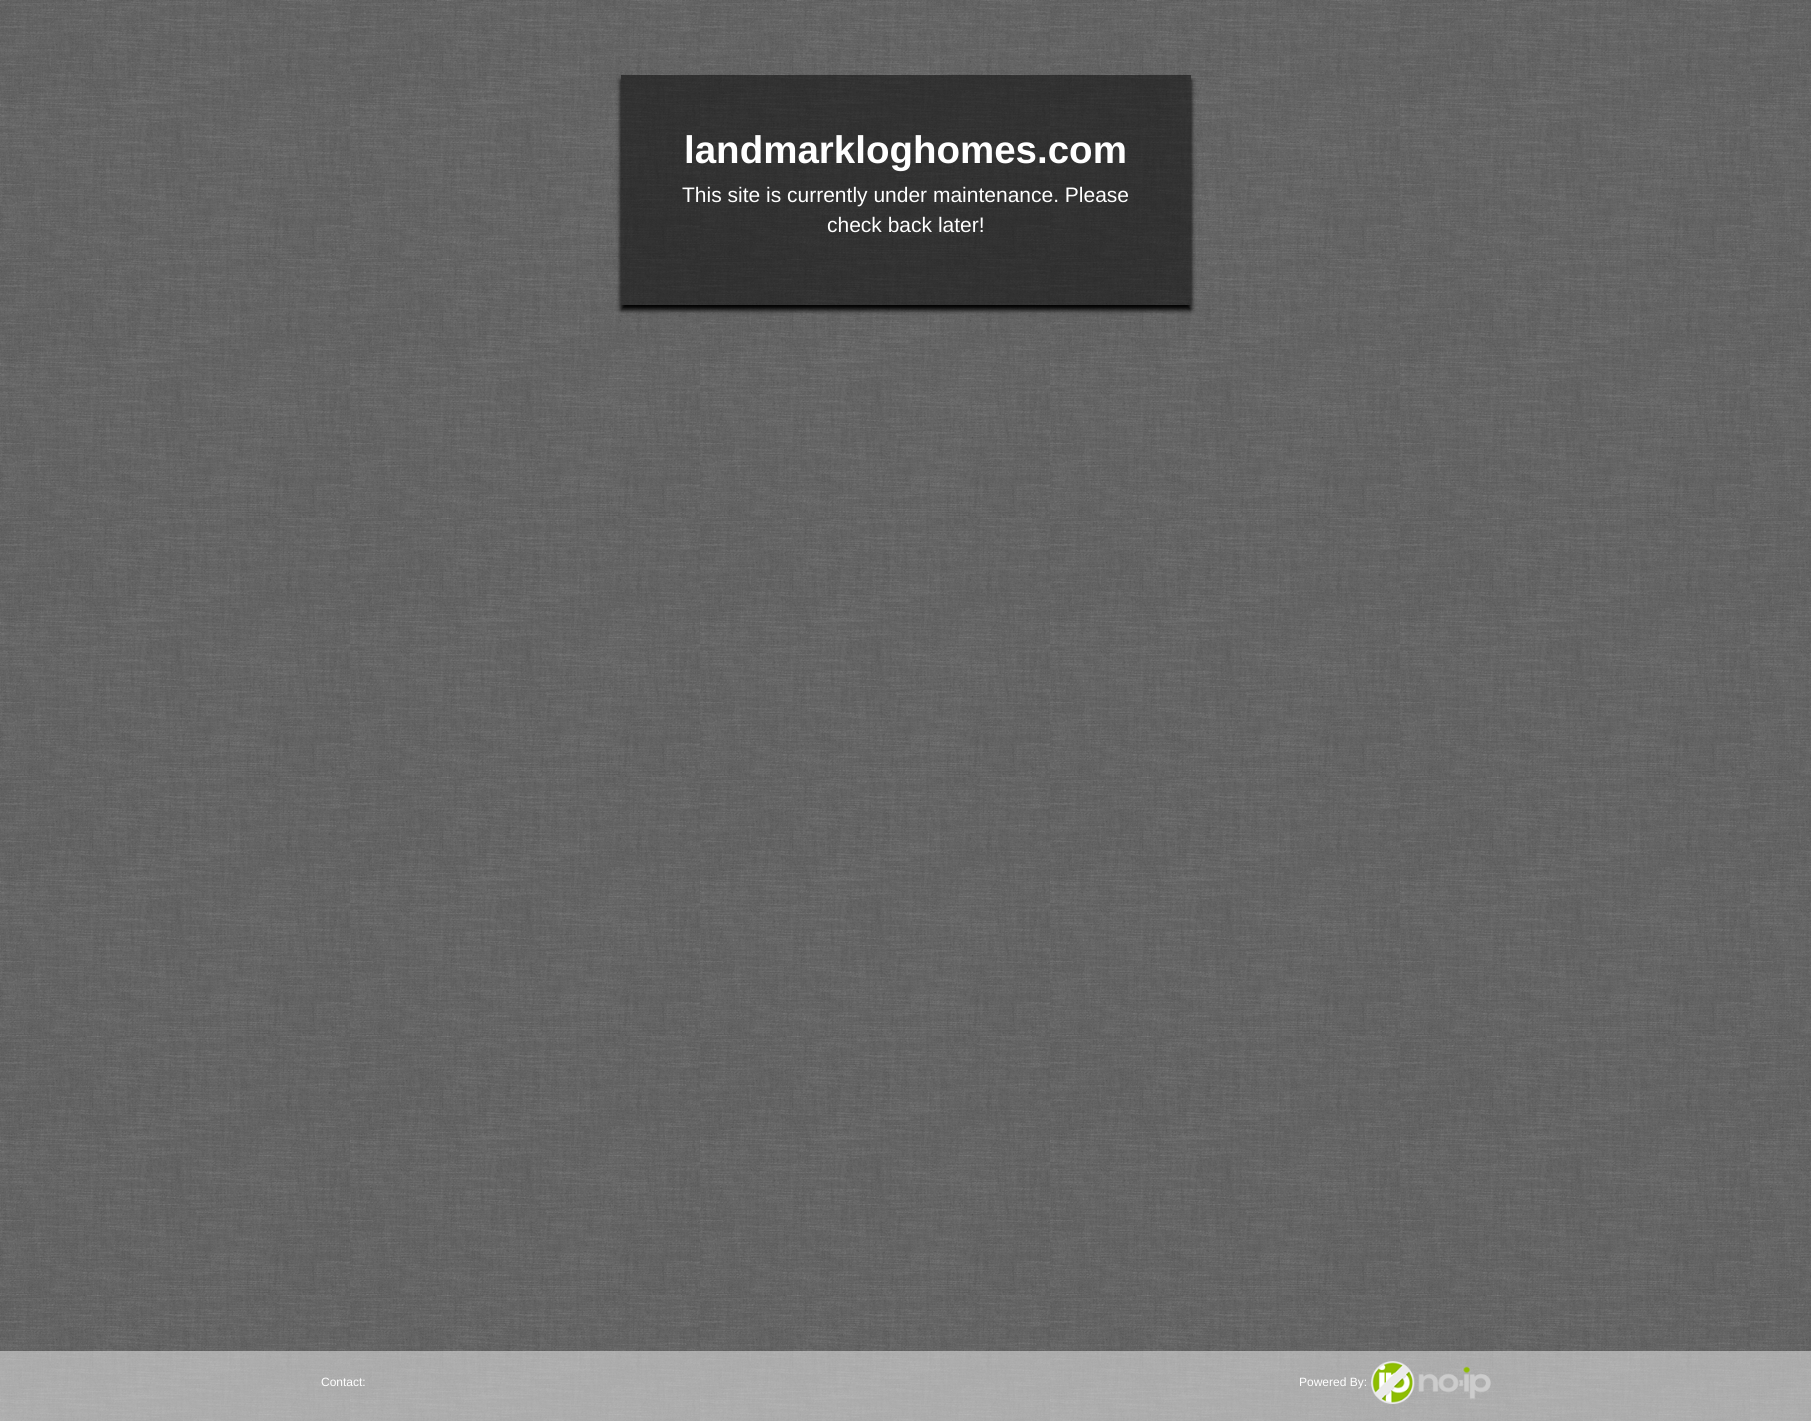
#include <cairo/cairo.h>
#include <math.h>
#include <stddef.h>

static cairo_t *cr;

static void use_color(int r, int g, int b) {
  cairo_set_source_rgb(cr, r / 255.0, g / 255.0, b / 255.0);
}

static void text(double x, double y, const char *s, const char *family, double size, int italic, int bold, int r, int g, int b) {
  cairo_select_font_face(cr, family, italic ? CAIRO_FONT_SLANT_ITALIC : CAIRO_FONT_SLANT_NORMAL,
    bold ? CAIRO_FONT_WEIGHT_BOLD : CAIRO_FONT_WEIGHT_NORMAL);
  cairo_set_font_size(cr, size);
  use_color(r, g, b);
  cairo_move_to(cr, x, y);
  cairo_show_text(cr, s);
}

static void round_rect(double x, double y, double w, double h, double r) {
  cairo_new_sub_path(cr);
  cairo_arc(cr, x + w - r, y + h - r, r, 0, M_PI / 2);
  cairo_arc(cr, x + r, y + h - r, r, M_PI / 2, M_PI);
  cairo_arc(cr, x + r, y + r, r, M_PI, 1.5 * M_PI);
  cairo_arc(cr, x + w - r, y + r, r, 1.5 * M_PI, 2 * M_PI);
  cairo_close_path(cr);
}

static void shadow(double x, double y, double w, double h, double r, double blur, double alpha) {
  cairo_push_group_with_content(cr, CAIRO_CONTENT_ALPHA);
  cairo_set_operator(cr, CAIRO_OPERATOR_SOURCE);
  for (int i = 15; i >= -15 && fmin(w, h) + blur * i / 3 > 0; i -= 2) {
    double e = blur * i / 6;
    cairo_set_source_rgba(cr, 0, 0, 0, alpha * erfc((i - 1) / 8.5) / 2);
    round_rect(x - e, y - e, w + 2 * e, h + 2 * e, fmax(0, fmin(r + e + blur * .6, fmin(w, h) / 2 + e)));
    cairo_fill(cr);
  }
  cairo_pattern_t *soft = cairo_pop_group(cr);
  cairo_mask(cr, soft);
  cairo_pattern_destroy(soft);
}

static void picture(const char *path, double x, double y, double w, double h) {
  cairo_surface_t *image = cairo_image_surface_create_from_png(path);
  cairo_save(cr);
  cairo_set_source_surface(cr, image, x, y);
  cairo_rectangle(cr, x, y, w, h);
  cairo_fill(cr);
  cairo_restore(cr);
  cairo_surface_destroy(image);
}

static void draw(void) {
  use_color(255, 255, 255);
  cairo_paint(cr);
  picture("img_01.png", 0, 0, 1811, 1421);
  cairo_save(cr);
  cairo_set_fill_rule(cr, CAIRO_FILL_RULE_EVEN_ODD);
  cairo_new_path(cr);
  cairo_move_to(cr, 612, 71);
  cairo_line_to(cr, 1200, 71);
  cairo_line_to(cr, 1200, 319);
  cairo_line_to(cr, 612, 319);
  cairo_close_path(cr);
  cairo_move_to(cr, 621, 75);
  cairo_line_to(cr, 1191, 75);
  cairo_line_to(cr, 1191, 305);
  cairo_line_to(cr, 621, 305);
  cairo_close_path(cr);
  cairo_clip(cr);
  use_color(0, 0, 0);
  shadow(621, 80, 570, 230, 0, 2.5, 1);
  cairo_restore(cr);
  cairo_set_source_rgba(cr, 0, 0, 0, 0.5);
  cairo_rectangle(cr, 621, 75, 570, 230);
  cairo_fill(cr);
  cairo_set_source_rgba(cr, 0.961, 0.961, 0.961, 0.5);
  cairo_rectangle(cr, 0, 1351, 1811, 70);
  cairo_fill(cr);
  picture("img_02.png", 1371, 1361, 120, 43);
  text(684, 163, "landmarkloghomes.com", "Liberation Sans", 38.5, 0, 1, 255, 255, 255);
  text(682, 202, "This site is currently under maintenance. Please", "Liberation Sans", 21, 0, 0, 255, 255, 255);
  text(827, 232, "check back later!", "Liberation Sans", 21, 0, 0, 255, 255, 255);
  text(321, 1386, "Contact:", "Liberation Sans", 12, 0, 0, 255, 255, 255);
  text(1299, 1386, "Powered By:", "Liberation Sans", 12, 0, 0, 255, 255, 255);
}

int main(void) {
  cairo_surface_t *surface = cairo_image_surface_create(CAIRO_FORMAT_RGB24, 1811, 1421);
  cr = cairo_create(surface);
  cairo_font_options_t *options = cairo_font_options_create();
  cairo_font_options_set_hint_metrics(options, CAIRO_HINT_METRICS_OFF);
  cairo_font_options_set_hint_style(options, CAIRO_HINT_STYLE_NONE);
  cairo_set_font_options(cr, options);
  cairo_set_miter_limit(cr, 4);
  draw();
  cairo_surface_write_to_png(surface, "out.png");
  cairo_font_options_destroy(options);
  cairo_destroy(cr);
  cairo_surface_destroy(surface);
  return 0;
}
